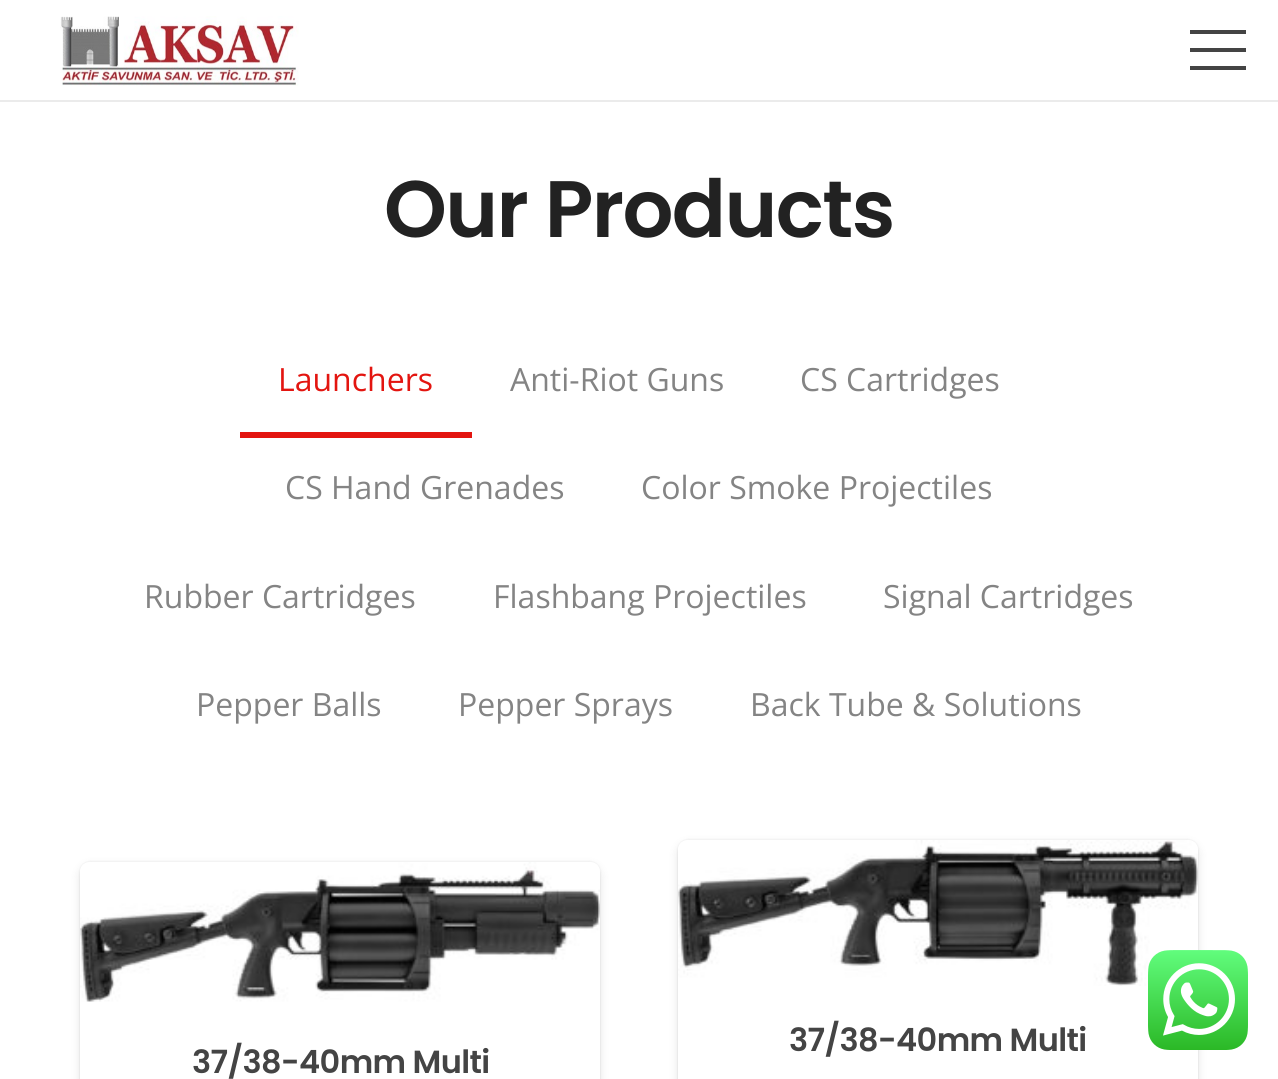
#include <cairo/cairo.h>
#include <math.h>
#include <stddef.h>

static cairo_t *cr;

static void use_color(int r, int g, int b) {
  cairo_set_source_rgb(cr, r / 255.0, g / 255.0, b / 255.0);
}

static void text(double x, double y, const char *s, const char *family, double size, int italic, int bold, int r, int g, int b) {
  cairo_select_font_face(cr, family, italic ? CAIRO_FONT_SLANT_ITALIC : CAIRO_FONT_SLANT_NORMAL,
    bold ? CAIRO_FONT_WEIGHT_BOLD : CAIRO_FONT_WEIGHT_NORMAL);
  cairo_set_font_size(cr, size);
  use_color(r, g, b);
  cairo_move_to(cr, x, y);
  cairo_show_text(cr, s);
}

static void spaced_text(double x, double y, const char *s, double letter, double word) {
  cairo_move_to(cr, x, y);
  while (*s) {
    char ch[5] = {0};
    int n = 0;
    do ch[n++] = *s++; while ((*s & 0xC0) == 0x80);
    cairo_show_text(cr, ch);
    cairo_rel_move_to(cr, letter + word * (*ch == ' '), 0);
  }
}

static void box(double x, double y, double w, double h, int r, int g, int b) {
  use_color(r, g, b);
  cairo_rectangle(cr, x, y, w, h);
  cairo_fill(cr);
}

static void round_rect(double x, double y, double w, double h, double r) {
  cairo_new_sub_path(cr);
  cairo_arc(cr, x + w - r, y + h - r, r, 0, M_PI / 2);
  cairo_arc(cr, x + r, y + h - r, r, M_PI / 2, M_PI);
  cairo_arc(cr, x + r, y + r, r, M_PI, 1.5 * M_PI);
  cairo_arc(cr, x + w - r, y + r, r, 1.5 * M_PI, 2 * M_PI);
  cairo_close_path(cr);
}

static void shadow(double x, double y, double w, double h, double r, double blur, double alpha) {
  cairo_push_group_with_content(cr, CAIRO_CONTENT_ALPHA);
  cairo_set_operator(cr, CAIRO_OPERATOR_SOURCE);
  for (int i = 15; i >= -15 && fmin(w, h) + blur * i / 3 > 0; i -= 2) {
    double e = blur * i / 6;
    cairo_set_source_rgba(cr, 0, 0, 0, alpha * erfc((i - 1) / 8.5) / 2);
    round_rect(x - e, y - e, w + 2 * e, h + 2 * e, fmax(0, fmin(r + e + blur * .6, fmin(w, h) / 2 + e)));
    cairo_fill(cr);
  }
  cairo_pattern_t *soft = cairo_pop_group(cr);
  cairo_mask(cr, soft);
  cairo_pattern_destroy(soft);
}

static void picture(const char *path, double x, double y, double w, double h) {
  cairo_surface_t *image = cairo_image_surface_create_from_png(path);
  cairo_save(cr);
  cairo_set_source_surface(cr, image, x, y);
  cairo_rectangle(cr, x, y, w, h);
  cairo_fill(cr);
  cairo_restore(cr);
  cairo_surface_destroy(image);
}

static void draw(void) {
  use_color(255, 255, 255);
  cairo_paint(cr);
  box(0, 100, 1278, 2, 235, 235, 235);
  picture("img_01.png", 60, 16, 239, 70);
  box(1190, 48, 56, 4, 68, 68, 68);
  box(1190, 30, 56, 4, 68, 68, 68);
  box(1190, 66, 56, 4, 68, 68, 68);
  box(240, 432, 232, 6, 227, 21, 16);
  use_color(0, 0, 0);
  shadow(80, 866, 520, 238, 10, 5, 0.1);
  shadow(80, 862, 520, 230, 10, 1, 0.1);
  use_color(255, 255, 255);
  round_rect(80, 862, 520, 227, 10);
  cairo_fill(cr);
  picture("img_02.png", 80, 862, 520, 140);
  use_color(0, 0, 0);
  shadow(678, 844, 520, 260, 10, 5, 0.1);
  shadow(678, 840, 520, 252, 10, 1, 0.1);
  use_color(255, 255, 255);
  round_rect(678, 840, 520, 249, 10);
  cairo_fill(cr);
  picture("img_03.png", 678, 840, 520, 146);
  picture("img_04.png", 1148, 950, 100, 100);
  cairo_select_font_face(cr, "Poppins SemiBold", CAIRO_FONT_SLANT_NORMAL, CAIRO_FONT_WEIGHT_NORMAL);
  cairo_set_font_size(cr, 80);
  use_color(34, 34, 34);
  spaced_text(384, 237, "Our Products", -1.6, 0);
  text(278, 391, "Launchers", "Open Sans", 32, 0, 0, 227, 21, 16);
  text(510, 391, "Anti-Riot Guns", "Open Sans", 32, 0, 0, 132, 132, 132);
  text(800, 391, "CS Cartridges", "Open Sans", 32, 0, 0, 132, 132, 132);
  text(285, 499, "CS Hand Grenades", "Open Sans", 32, 0, 0, 132, 132, 132);
  text(641, 499, "Color Smoke Projectiles", "Open Sans", 32, 0, 0, 132, 132, 132);
  text(144, 608, "Rubber Cartridges", "Open Sans", 32, 0, 0, 132, 132, 132);
  text(493, 608, "Flashbang Projectiles", "Open Sans", 32, 0, 0, 132, 132, 132);
  text(883, 608, "Signal Cartridges", "Open Sans", 32, 0, 0, 132, 132, 132);
  text(196, 716, "Pepper Balls", "Open Sans", 32, 0, 0, 132, 132, 132);
  text(458, 716, "Pepper Sprays", "Open Sans", 32, 0, 0, 132, 132, 132);
  text(750, 716, "Back Tube & Solutions", "Open Sans", 32, 0, 0, 132, 132, 132);
  cairo_select_font_face(cr, "Poppins SemiBold", CAIRO_FONT_SLANT_NORMAL, CAIRO_FONT_WEIGHT_NORMAL);
  use_color(68, 68, 68);
  spaced_text(192, 1073, "37/38-40mm Multi", -0.6, 0);
  spaced_text(789, 1051, "37/38-40mm Multi", -0.6, 0);
}

int main(void) {
  cairo_surface_t *surface = cairo_image_surface_create(CAIRO_FORMAT_RGB24, 1278, 1079);
  cr = cairo_create(surface);
  cairo_font_options_t *options = cairo_font_options_create();
  cairo_font_options_set_hint_metrics(options, CAIRO_HINT_METRICS_OFF);
  cairo_font_options_set_hint_style(options, CAIRO_HINT_STYLE_NONE);
  cairo_set_font_options(cr, options);
  cairo_set_miter_limit(cr, 4);
  draw();
  cairo_surface_write_to_png(surface, "out.png");
  cairo_font_options_destroy(options);
  cairo_destroy(cr);
  cairo_surface_destroy(surface);
  return 0;
}
